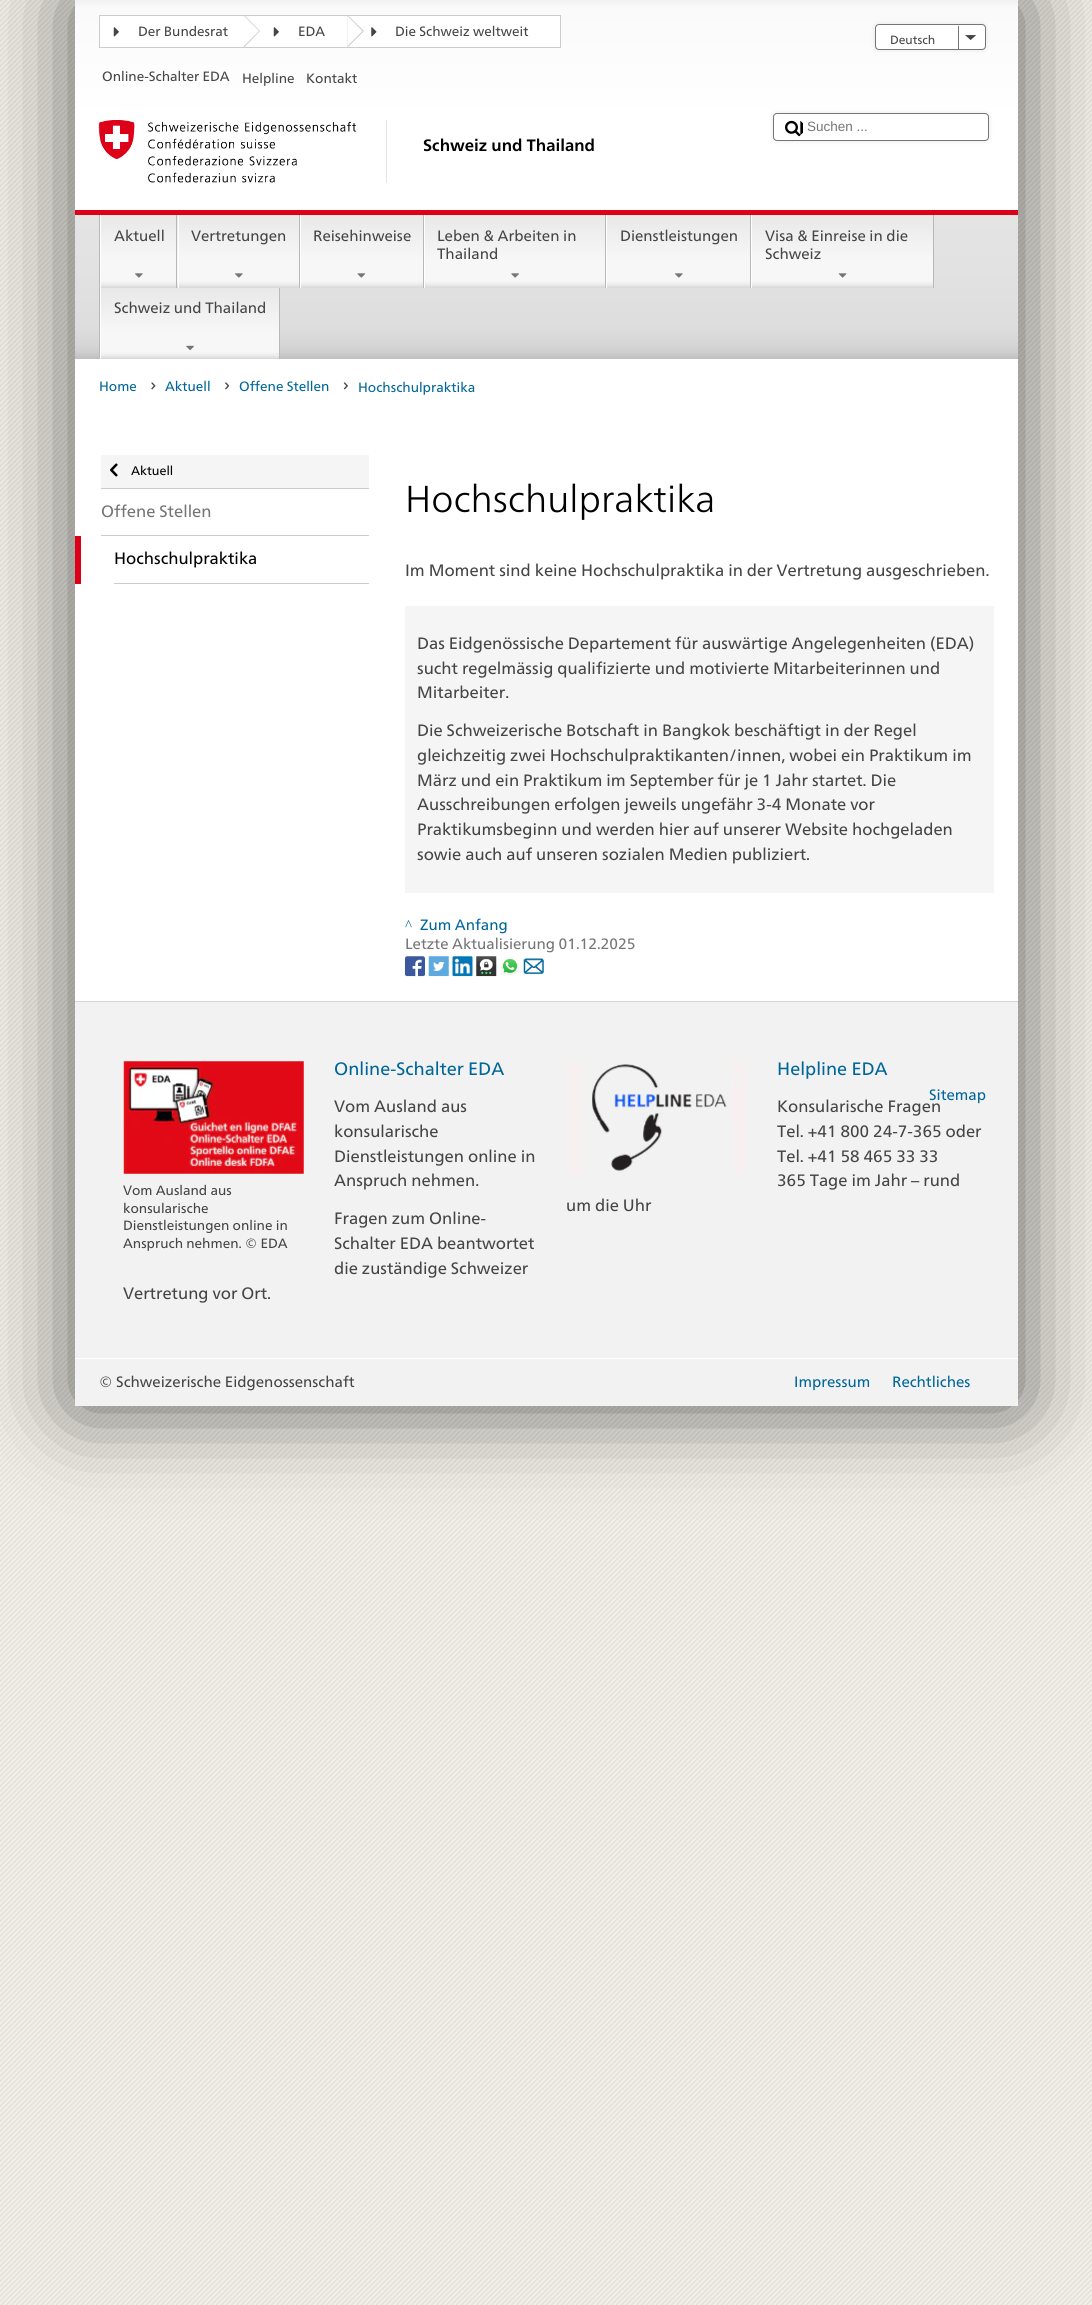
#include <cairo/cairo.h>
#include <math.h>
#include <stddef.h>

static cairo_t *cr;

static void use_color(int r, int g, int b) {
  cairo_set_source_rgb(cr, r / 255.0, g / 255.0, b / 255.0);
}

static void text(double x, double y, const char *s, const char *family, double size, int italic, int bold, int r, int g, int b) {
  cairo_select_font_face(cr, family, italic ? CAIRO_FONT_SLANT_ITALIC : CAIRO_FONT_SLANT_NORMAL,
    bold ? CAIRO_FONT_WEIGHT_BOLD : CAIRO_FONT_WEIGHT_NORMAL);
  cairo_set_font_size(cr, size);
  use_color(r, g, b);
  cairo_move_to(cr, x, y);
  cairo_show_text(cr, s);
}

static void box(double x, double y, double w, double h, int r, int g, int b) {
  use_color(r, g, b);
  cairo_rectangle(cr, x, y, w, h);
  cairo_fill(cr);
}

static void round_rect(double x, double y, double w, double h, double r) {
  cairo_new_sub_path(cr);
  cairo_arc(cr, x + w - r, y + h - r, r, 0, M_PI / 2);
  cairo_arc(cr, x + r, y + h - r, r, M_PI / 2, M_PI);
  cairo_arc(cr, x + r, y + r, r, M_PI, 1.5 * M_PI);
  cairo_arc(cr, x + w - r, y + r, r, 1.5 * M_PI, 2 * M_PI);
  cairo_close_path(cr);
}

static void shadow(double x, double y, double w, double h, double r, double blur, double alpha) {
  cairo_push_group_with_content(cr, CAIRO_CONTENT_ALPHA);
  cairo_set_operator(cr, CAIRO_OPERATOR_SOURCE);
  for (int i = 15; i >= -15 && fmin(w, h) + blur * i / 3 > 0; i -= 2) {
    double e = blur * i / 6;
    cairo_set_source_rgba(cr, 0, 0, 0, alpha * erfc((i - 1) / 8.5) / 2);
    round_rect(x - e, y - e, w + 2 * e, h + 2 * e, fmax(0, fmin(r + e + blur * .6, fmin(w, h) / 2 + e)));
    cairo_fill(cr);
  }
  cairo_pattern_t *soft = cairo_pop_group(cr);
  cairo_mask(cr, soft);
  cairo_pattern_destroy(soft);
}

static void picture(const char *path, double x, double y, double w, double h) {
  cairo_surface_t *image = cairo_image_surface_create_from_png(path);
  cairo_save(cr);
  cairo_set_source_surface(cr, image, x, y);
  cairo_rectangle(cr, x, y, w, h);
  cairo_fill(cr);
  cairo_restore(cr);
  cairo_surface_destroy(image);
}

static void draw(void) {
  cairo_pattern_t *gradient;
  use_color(255, 255, 255);
  cairo_paint(cr);
  picture("img_01.png", 0, 0, 1092, 2305);
  use_color(0, 0, 0);
  shadow(75, 0, 943, 1406, 0, 45, 0.6);
  box(75, 120, 943, 881, 255, 255, 255);
  gradient = cairo_pattern_create_linear(546, 0, 546, 120);
  cairo_pattern_add_color_stop_rgba(gradient, 0, 0.949, 0.949, 0.949, 1);
  cairo_pattern_add_color_stop_rgba(gradient, 0.07, 0.98, 0.98, 0.98, 1);
  cairo_pattern_add_color_stop_rgba(gradient, 1, 1, 1, 1, 1);
  cairo_set_source(cr, gradient);
  cairo_pattern_destroy(gradient);
  cairo_rectangle(cr, 75, 0, 943, 120);
  cairo_fill(cr);
  use_color(255, 255, 255);
  cairo_rectangle(cr, 99.5, 15.5, 461, 32);
  cairo_fill_preserve(cr);
  use_color(204, 204, 204);
  cairo_set_line_width(cr, 1);
  cairo_stroke(cr);
  cairo_new_path(cr);
  cairo_move_to(cr, 244, 47.5);
  cairo_line_to(cr, 244, 15);
  cairo_line_to(cr, 260, 31);
  cairo_close_path(cr);
  cairo_fill(cr);
  picture("img_02.png", 113, 27, 6, 10);
  use_color(255, 255, 255);
  cairo_new_path(cr);
  cairo_move_to(cr, 244, 46);
  cairo_line_to(cr, 244, 16);
  cairo_line_to(cr, 259, 31);
  cairo_close_path(cr);
  cairo_fill(cr);
  use_color(204, 204, 204);
  cairo_new_path(cr);
  cairo_move_to(cr, 347.5, 47.5);
  cairo_line_to(cr, 347.5, 15);
  cairo_line_to(cr, 364, 31);
  cairo_close_path(cr);
  cairo_fill(cr);
  picture("img_02.png", 273, 27, 6, 10);
  use_color(255, 255, 255);
  cairo_new_path(cr);
  cairo_move_to(cr, 347.5, 46);
  cairo_line_to(cr, 347.5, 16);
  cairo_line_to(cr, 362.5, 31);
  cairo_close_path(cr);
  cairo_fill(cr);
  picture("img_03.png", 371, 27, 6, 10);
  use_color(0, 0, 0);
  shadow(875, 24, 111, 26, 4, 2.5, 0.1);
  use_color(255, 255, 255);
  round_rect(875.5, 24.5, 110, 25, 3.5);
  cairo_fill_preserve(cr);
  use_color(117, 117, 117);
  cairo_stroke(cr);
  picture("img_04.png", 965, 35, 11, 5);
  box(958, 26, 1, 23, 117, 117, 117);
  use_color(0, 0, 0);
  shadow(773, 113, 216, 28, 4, 2.5, 0.1);
  use_color(255, 255, 255);
  round_rect(773.5, 113.5, 215, 27, 3.5);
  cairo_fill_preserve(cr);
  use_color(117, 117, 117);
  cairo_stroke(cr);
  picture("img_05.png", 785, 120, 18, 17);
  picture("img_06.png", 98, 120, 259, 63);
  box(386, 120, 1, 63, 229, 229, 229);
  gradient = cairo_pattern_create_linear(546, 215, 546, 359);
  cairo_pattern_add_color_stop_rgba(gradient, 0, 0.894, 0.894, 0.894, 1);
  cairo_pattern_add_color_stop_rgba(gradient, 0.39, 0.886, 0.886, 0.886, 1);
  cairo_pattern_add_color_stop_rgba(gradient, 0.79, 0.867, 0.867, 0.867, 1);
  cairo_pattern_add_color_stop_rgba(gradient, 0.91, 0.835, 0.835, 0.835, 1);
  cairo_pattern_add_color_stop_rgba(gradient, 0.95, 0.812, 0.812, 0.812, 1);
  cairo_pattern_add_color_stop_rgba(gradient, 1, 0.745, 0.745, 0.745, 1);
  cairo_set_source(cr, gradient);
  cairo_pattern_destroy(gradient);
  cairo_rectangle(cr, 75, 215, 943, 144);
  cairo_fill(cr);
  box(75, 210, 943, 5, 220, 0, 24);
  box(99, 215, 1, 144, 184, 184, 184);
  gradient = cairo_pattern_create_linear(139, 215, 139, 288);
  cairo_pattern_add_color_stop_rgba(gradient, 0, 0.91, 0.91, 0.91, 1);
  cairo_pattern_add_color_stop_rgba(gradient, 0.61, 0.969, 0.969, 0.969, 1);
  cairo_pattern_add_color_stop_rgba(gradient, 0.89, 0.969, 0.969, 0.969, 1);
  cairo_pattern_add_color_stop_rgba(gradient, 0.91, 0.961, 0.961, 0.961, 1);
  cairo_pattern_add_color_stop_rgba(gradient, 0.95, 0.925, 0.925, 0.925, 1);
  cairo_pattern_add_color_stop_rgba(gradient, 1, 0.843, 0.843, 0.843, 1);
  cairo_set_source(cr, gradient);
  cairo_pattern_destroy(gradient);
  cairo_rectangle(cr, 101, 215, 77, 73);
  cairo_fill(cr);
  box(176, 215, 1, 73, 184, 184, 184);
  box(100, 215, 1, 144, 255, 255, 255);
  picture("img_07.png", 135, 273, 8, 5);
  gradient = cairo_pattern_create_linear(239, 215, 239, 288);
  cairo_pattern_add_color_stop_rgba(gradient, 0, 0.91, 0.91, 0.91, 1);
  cairo_pattern_add_color_stop_rgba(gradient, 0.61, 0.969, 0.969, 0.969, 1);
  cairo_pattern_add_color_stop_rgba(gradient, 0.89, 0.969, 0.969, 0.969, 1);
  cairo_pattern_add_color_stop_rgba(gradient, 0.91, 0.961, 0.961, 0.961, 1);
  cairo_pattern_add_color_stop_rgba(gradient, 0.95, 0.925, 0.925, 0.925, 1);
  cairo_pattern_add_color_stop_rgba(gradient, 1, 0.843, 0.843, 0.843, 1);
  cairo_set_source(cr, gradient);
  cairo_pattern_destroy(gradient);
  cairo_rectangle(cr, 179, 215, 120, 73);
  cairo_fill(cr);
  box(299, 215, 1, 73, 184, 184, 184);
  box(178, 215, 1, 73, 255, 255, 255);
  picture("img_07.png", 235, 273, 8, 5);
  gradient = cairo_pattern_create_linear(362, 215, 362, 288);
  cairo_pattern_add_color_stop_rgba(gradient, 0, 0.91, 0.91, 0.91, 1);
  cairo_pattern_add_color_stop_rgba(gradient, 0.61, 0.969, 0.969, 0.969, 1);
  cairo_pattern_add_color_stop_rgba(gradient, 0.89, 0.969, 0.969, 0.969, 1);
  cairo_pattern_add_color_stop_rgba(gradient, 0.91, 0.961, 0.961, 0.961, 1);
  cairo_pattern_add_color_stop_rgba(gradient, 0.95, 0.925, 0.925, 0.925, 1);
  cairo_pattern_add_color_stop_rgba(gradient, 1, 0.843, 0.843, 0.843, 1);
  cairo_set_source(cr, gradient);
  cairo_pattern_destroy(gradient);
  cairo_rectangle(cr, 301, 215, 122, 73);
  cairo_fill(cr);
  box(423, 215, 1, 73, 184, 184, 184);
  box(300, 215, 1, 73, 255, 255, 255);
  picture("img_08.png", 357, 273, 9, 5);
  gradient = cairo_pattern_create_linear(515, 215, 515, 288);
  cairo_pattern_add_color_stop_rgba(gradient, 0, 0.91, 0.91, 0.91, 1);
  cairo_pattern_add_color_stop_rgba(gradient, 0.61, 0.969, 0.969, 0.969, 1);
  cairo_pattern_add_color_stop_rgba(gradient, 0.89, 0.969, 0.969, 0.969, 1);
  cairo_pattern_add_color_stop_rgba(gradient, 0.91, 0.961, 0.961, 0.961, 1);
  cairo_pattern_add_color_stop_rgba(gradient, 0.95, 0.925, 0.925, 0.925, 1);
  cairo_pattern_add_color_stop_rgba(gradient, 1, 0.843, 0.843, 0.843, 1);
  cairo_set_source(cr, gradient);
  cairo_pattern_destroy(gradient);
  cairo_rectangle(cr, 425, 215, 180, 73);
  cairo_fill(cr);
  box(605, 215, 1, 73, 184, 184, 184);
  box(424, 215, 1, 73, 255, 255, 255);
  picture("img_09.png", 511, 273, 8, 5);
  gradient = cairo_pattern_create_linear(679, 215, 679, 288);
  cairo_pattern_add_color_stop_rgba(gradient, 0, 0.91, 0.91, 0.91, 1);
  cairo_pattern_add_color_stop_rgba(gradient, 0.61, 0.969, 0.969, 0.969, 1);
  cairo_pattern_add_color_stop_rgba(gradient, 0.89, 0.969, 0.969, 0.969, 1);
  cairo_pattern_add_color_stop_rgba(gradient, 0.91, 0.961, 0.961, 0.961, 1);
  cairo_pattern_add_color_stop_rgba(gradient, 0.95, 0.925, 0.925, 0.925, 1);
  cairo_pattern_add_color_stop_rgba(gradient, 1, 0.843, 0.843, 0.843, 1);
  cairo_set_source(cr, gradient);
  cairo_pattern_destroy(gradient);
  cairo_rectangle(cr, 607, 215, 143, 73);
  cairo_fill(cr);
  box(750, 215, 1, 73, 184, 184, 184);
  box(606, 215, 1, 73, 255, 255, 255);
  picture("img_07.png", 675, 273, 8, 5);
  gradient = cairo_pattern_create_linear(843, 215, 843, 288);
  cairo_pattern_add_color_stop_rgba(gradient, 0, 0.91, 0.91, 0.91, 1);
  cairo_pattern_add_color_stop_rgba(gradient, 0.61, 0.969, 0.969, 0.969, 1);
  cairo_pattern_add_color_stop_rgba(gradient, 0.89, 0.969, 0.969, 0.969, 1);
  cairo_pattern_add_color_stop_rgba(gradient, 0.91, 0.961, 0.961, 0.961, 1);
  cairo_pattern_add_color_stop_rgba(gradient, 0.95, 0.925, 0.925, 0.925, 1);
  cairo_pattern_add_color_stop_rgba(gradient, 1, 0.843, 0.843, 0.843, 1);
  cairo_set_source(cr, gradient);
  cairo_pattern_destroy(gradient);
  cairo_rectangle(cr, 752, 215, 181, 73);
  cairo_fill(cr);
  box(933, 215, 1, 73, 184, 184, 184);
  box(751, 215, 1, 73, 255, 255, 255);
  picture("img_10.png", 838, 273, 9, 5);
  gradient = cairo_pattern_create_linear(190, 288, 190, 359);
  cairo_pattern_add_color_stop_rgba(gradient, 0, 0.91, 0.91, 0.91, 1);
  cairo_pattern_add_color_stop_rgba(gradient, 0.61, 0.969, 0.969, 0.969, 1);
  cairo_pattern_add_color_stop_rgba(gradient, 0.89, 0.969, 0.969, 0.969, 1);
  cairo_pattern_add_color_stop_rgba(gradient, 0.91, 0.961, 0.961, 0.961, 1);
  cairo_pattern_add_color_stop_rgba(gradient, 0.95, 0.925, 0.925, 0.925, 1);
  cairo_pattern_add_color_stop_rgba(gradient, 1, 0.843, 0.843, 0.843, 1);
  cairo_set_source(cr, gradient);
  cairo_pattern_destroy(gradient);
  cairo_rectangle(cr, 101, 288, 178, 71);
  cairo_fill(cr);
  box(279, 288, 1, 71, 184, 184, 184);
  picture("img_11.png", 186, 345, 8, 6);
  picture("img_12.png", 151, 382, 5, 8);
  picture("img_13.png", 225, 382, 5, 8);
  picture("img_14.png", 343, 382, 5, 8);
  box(101, 455, 268, 33, 245, 245, 245);
  box(101, 488, 268, 1, 204, 204, 204);
  picture("img_15.png", 110, 463, 8, 14);
  box(101, 535, 268, 1, 204, 204, 204);
  box(75, 536, 6, 48, 220, 0, 24);
  box(114, 583, 255, 1, 204, 204, 204);
  box(405, 606, 589, 287, 245, 245, 245);
  picture("img_16.png", 405, 956, 20, 21);
  picture("img_17.png", 428, 956, 21, 21);
  picture("img_18.png", 452, 956, 21, 21);
  picture("img_19.png", 476, 956, 21, 21);
  picture("img_20.png", 501, 958, 18, 17);
  picture("img_21.png", 523, 958, 21, 17);
  box(75, 1002, 943, 404, 242, 242, 242);
  box(75, 1001, 943, 1, 213, 213, 213);
  picture("img_22.png", 123, 1061, 181, 113);
  picture("img_23.png", 567, 1062, 179, 111);
  box(75, 1358, 943, 1, 255, 255, 255);
  text(138, 36, "Der Bundesrat", "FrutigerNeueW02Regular", 13.5, 0, 0, 69, 69, 69);
  text(298, 36, "EDA", "FrutigerNeueW02Regular", 13.5, 0, 0, 69, 69, 69);
  text(395, 36, "Die Schweiz weltweit", "FrutigerNeueW02Regular", 13.5, 0, 0, 69, 69, 69);
  text(890, 44, "Deutsch", "FrutigerNeueW02Regular", 12, 0, 0, 69, 69, 69);
  text(102, 81, "Online-Schalter EDA", "FrutigerNeueW02Regular", 13.5, 0, 0, 69, 69, 69);
  text(242, 83, "Helpline", "FrutigerNeueW02Regular", 13.5, 0, 0, 69, 69, 69);
  text(306, 83, "Kontakt", "FrutigerNeueW02Regular", 13.5, 0, 0, 69, 69, 69);
  text(807, 131, "Suchen ...", "Liberation Sans", 13.5, 0, 0, 117, 117, 117);
  text(423, 151, "Schweiz und Thailand", "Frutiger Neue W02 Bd", 16.5, 0, 1, 0, 0, 0);
  text(114, 241, "Aktuell", "FrutigerNeueW02Regular", 15, 0, 0, 69, 69, 69);
  text(191, 241, "Vertretungen", "FrutigerNeueW02Regular", 15, 0, 0, 69, 69, 69);
  text(313, 241, "Reisehinweise", "FrutigerNeueW02Regular", 15, 0, 0, 69, 69, 69);
  text(437, 241, "Leben & Arbeiten in", "FrutigerNeueW02Regular", 15, 0, 0, 69, 69, 69);
  text(437, 259, "Thailand", "FrutigerNeueW02Regular", 15, 0, 0, 69, 69, 69);
  text(620, 241, "Dienstleistungen", "FrutigerNeueW02Regular", 15, 0, 0, 69, 69, 69);
  text(765, 241, "Visa & Einreise in die", "FrutigerNeueW02Regular", 15, 0, 0, 69, 69, 69);
  text(765, 259, "Schweiz", "FrutigerNeueW02Regular", 15, 0, 0, 69, 69, 69);
  text(114, 313, "Schweiz und Thailand", "FrutigerNeueW02Regular", 15, 0, 0, 69, 69, 69);
  text(99, 391, "Home", "FrutigerNeueW02Regular", 13.5, 0, 0, 0, 102, 153);
  text(165, 391, "Aktuell", "FrutigerNeueW02Regular", 13.5, 0, 0, 0, 102, 153);
  text(239, 391, "Offene Stellen", "FrutigerNeueW02Regular", 13.5, 0, 0, 0, 102, 153);
  text(358, 392, "Hochschulpraktika", "FrutigerNeueW02Regular", 13.5, 0, 0, 0, 102, 153);
  text(131, 475, "Aktuell", "FrutigerNeueW02Regular", 12.5, 0, 0, 0, 0, 0);
  text(101, 517, "Offene Stellen", "FrutigerNeueW02Regular", 16.5, 0, 0, 117, 117, 117);
  text(114, 564, "Hochschulpraktika", "FrutigerNeueW02Regular", 16.5, 0, 0, 0, 0, 0);
  text(405, 512, "Hochschulpraktika", "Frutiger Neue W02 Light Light", 37.5, 0, 0, 0, 0, 0);
  text(405, 576, "Im Moment sind keine Hochschulpraktika in der Vertretung ausgeschrieben.", "FrutigerNeueW02Regular", 16.5, 0, 0, 69, 69, 69);
  text(417, 649, "Das Eidgenössische Departement für auswärtige Angelegenheiten (EDA)", "FrutigerNeueW02Regular", 16.5, 0, 0, 69, 69, 69);
  text(417, 674, "sucht regelmässig qualifizierte und motivierte Mitarbeiterinnen und", "FrutigerNeueW02Regular", 16.5, 0, 0, 69, 69, 69);
  text(417, 698, "Mitarbeiter.", "FrutigerNeueW02Regular", 16.5, 0, 0, 69, 69, 69);
  text(417, 736, "Die Schweizerische Botschaft in Bangkok beschäftigt in der Regel", "FrutigerNeueW02Regular", 16.5, 0, 0, 69, 69, 69);
  text(417, 761, "gleichzeitig zwei Hochschulpraktikanten/innen, wobei ein Praktikum im", "FrutigerNeueW02Regular", 16.5, 0, 0, 69, 69, 69);
  text(417, 786, "März und ein Praktikum im September für je 1 Jahr startet. Die", "FrutigerNeueW02Regular", 16.5, 0, 0, 69, 69, 69);
  text(417, 810, "Ausschreibungen erfolgen jeweils ungefähr 3-4 Monate vor", "FrutigerNeueW02Regular", 16.5, 0, 0, 69, 69, 69);
  text(417, 835, "Praktikumsbeginn und werden hier auf unserer Website hochgeladen", "FrutigerNeueW02Regular", 16.5, 0, 0, 69, 69, 69);
  text(417, 860, "sowie auch auf unseren sozialen Medien publiziert.", "FrutigerNeueW02Regular", 16.5, 0, 0, 69, 69, 69);
  text(405, 930, "^", "Liberation Serif", 15, 0, 0, 0, 102, 153);
  text(420, 930, "Zum Anfang", "FrutigerNeueW02Regular", 15, 0, 0, 0, 102, 153);
  text(405, 949, "Letzte Aktualisierung 01.12.2025", "FrutigerNeueW02Regular", 15, 0, 0, 117, 117, 117);
  text(334, 1075, "Online-Schalter EDA", "FrutigerNeueW02Regular", 18, 0, 0, 0, 102, 153);
  text(334, 1112, "Vom Ausland aus", "FrutigerNeueW02Regular", 16.5, 0, 0, 69, 69, 69);
  text(334, 1137, "konsularische", "FrutigerNeueW02Regular", 16.5, 0, 0, 69, 69, 69);
  text(334, 1162, "Dienstleistungen online in", "FrutigerNeueW02Regular", 16.5, 0, 0, 69, 69, 69);
  text(334, 1186, "Anspruch nehmen.", "FrutigerNeueW02Regular", 16.5, 0, 0, 69, 69, 69);
  text(123, 1195, "Vom Ausland aus", "FrutigerNeueW02Regular", 13.5, 0, 0, 69, 69, 69);
  text(123, 1213, "konsularische", "FrutigerNeueW02Regular", 13.5, 0, 0, 69, 69, 69);
  text(123, 1230, "Dienstleistungen online in", "FrutigerNeueW02Regular", 13.5, 0, 0, 69, 69, 69);
  text(123, 1248, "Anspruch nehmen. © EDA", "FrutigerNeueW02Regular", 13.5, 0, 0, 69, 69, 69);
  text(334, 1224, "Fragen zum Online-", "FrutigerNeueW02Regular", 16.5, 0, 0, 69, 69, 69);
  text(334, 1249, "Schalter EDA beantwortet", "FrutigerNeueW02Regular", 16.5, 0, 0, 69, 69, 69);
  text(334, 1274, "die zuständige Schweizer", "FrutigerNeueW02Regular", 16.5, 0, 0, 69, 69, 69);
  text(123, 1299, "Vertretung vor Ort.", "FrutigerNeueW02Regular", 16.5, 0, 0, 69, 69, 69);
  text(777, 1075, "Helpline EDA", "FrutigerNeueW02Regular", 18, 0, 0, 0, 102, 153);
  text(777, 1112, "Konsularische Fragen", "FrutigerNeueW02Regular", 16.5, 0, 0, 69, 69, 69);
  text(777, 1137, "Tel. +41 800 24-7-365 oder", "FrutigerNeueW02Regular", 16.5, 0, 0, 69, 69, 69);
  text(777, 1162, "Tel. +41 58 465 33 33", "FrutigerNeueW02Regular", 16.5, 0, 0, 69, 69, 69);
  text(777, 1186, "365 Tage im Jahr – rund", "FrutigerNeueW02Regular", 16.5, 0, 0, 69, 69, 69);
  text(566, 1211, "um die Uhr", "FrutigerNeueW02Regular", 16.5, 0, 0, 69, 69, 69);
  text(929, 1100, "Sitemap", "FrutigerNeueW02Regular", 15, 0, 0, 0, 102, 153);
  text(99, 1387, "© Schweizerische Eidgenossenschaft", "FrutigerNeueW02Regular", 15, 0, 0, 69, 69, 69);
  text(794, 1387, "Impressum", "FrutigerNeueW02Regular", 15, 0, 0, 0, 102, 153);
  text(892, 1387, "Rechtliches", "FrutigerNeueW02Regular", 15, 0, 0, 0, 102, 153);
}

int main(void) {
  cairo_surface_t *surface = cairo_image_surface_create(CAIRO_FORMAT_RGB24, 1092, 2305);
  cr = cairo_create(surface);
  cairo_font_options_t *options = cairo_font_options_create();
  cairo_font_options_set_hint_metrics(options, CAIRO_HINT_METRICS_OFF);
  cairo_font_options_set_hint_style(options, CAIRO_HINT_STYLE_NONE);
  cairo_set_font_options(cr, options);
  cairo_set_miter_limit(cr, 4);
  draw();
  cairo_surface_write_to_png(surface, "out.png");
  cairo_font_options_destroy(options);
  cairo_destroy(cr);
  cairo_surface_destroy(surface);
  return 0;
}
